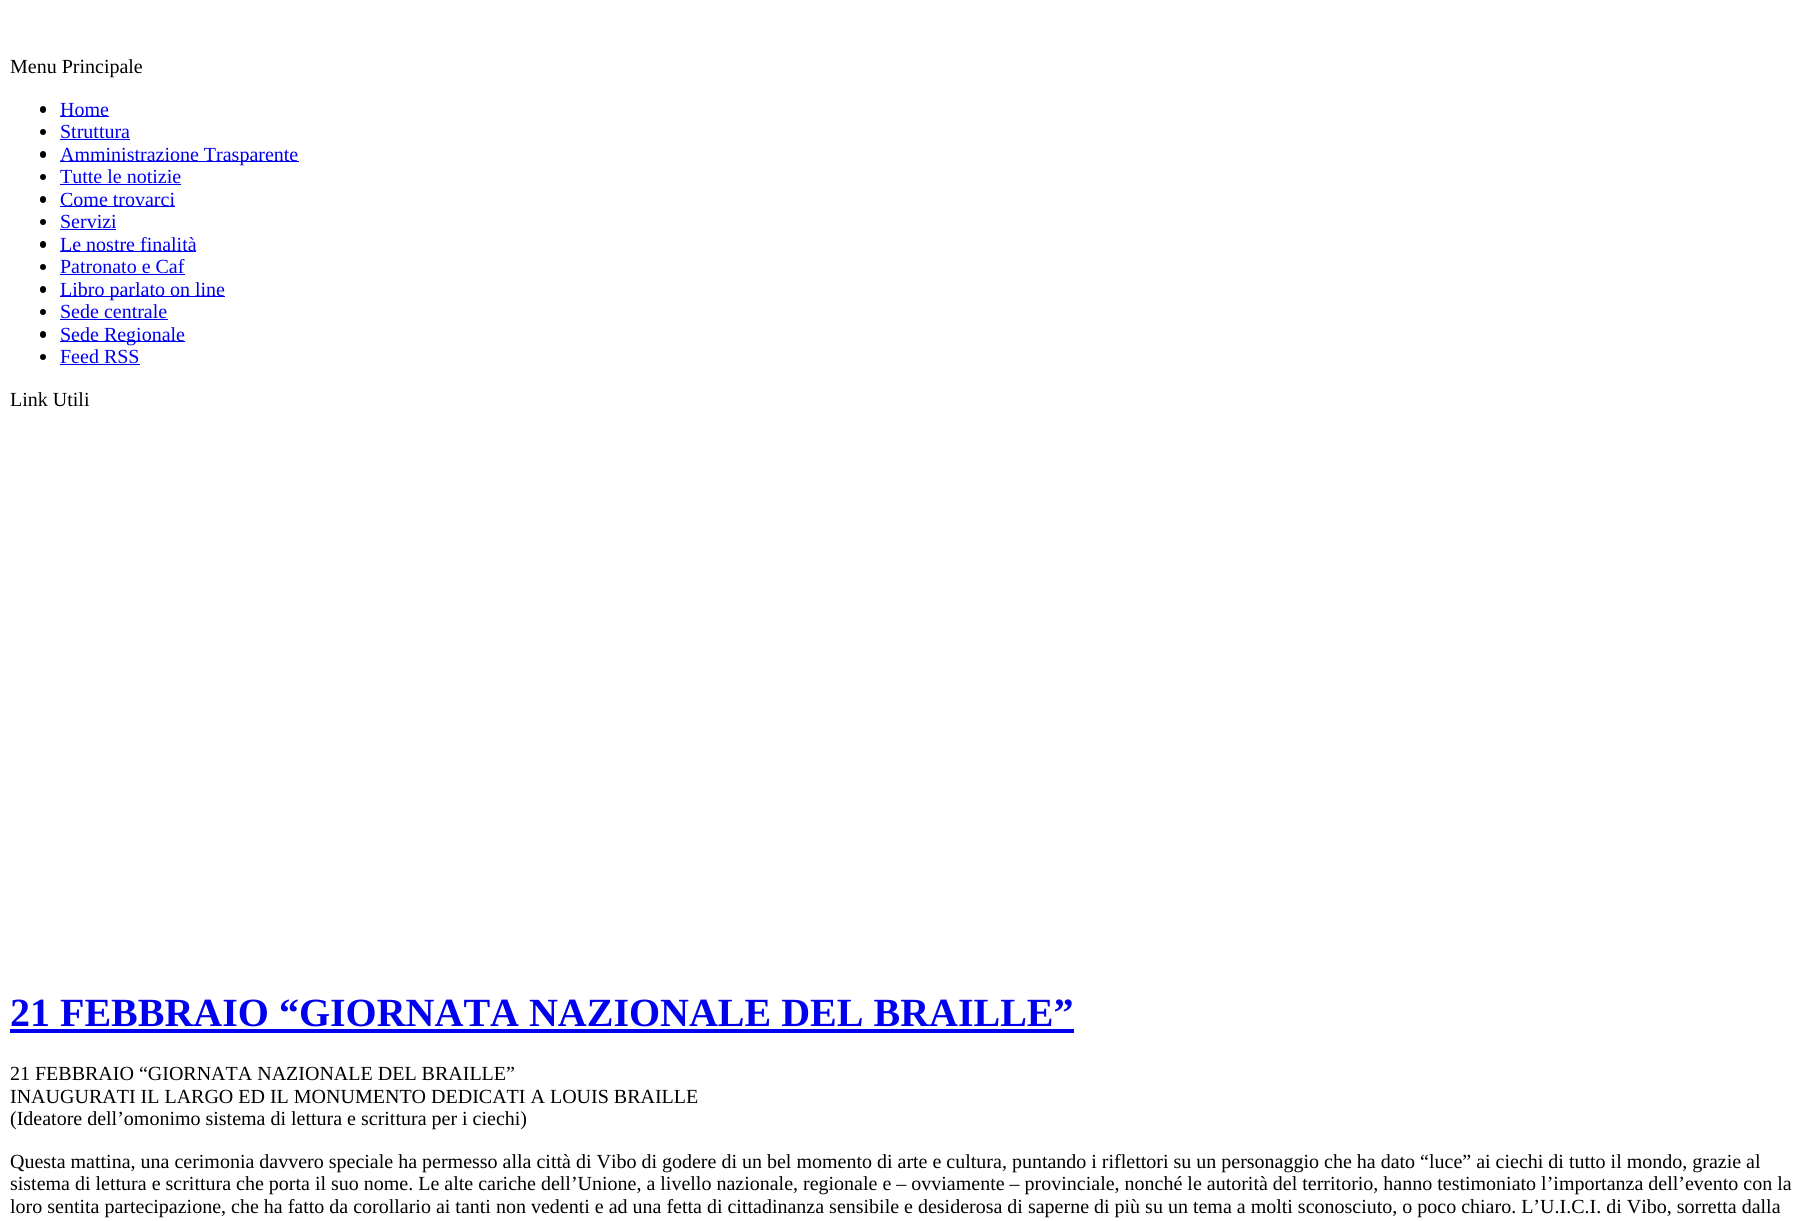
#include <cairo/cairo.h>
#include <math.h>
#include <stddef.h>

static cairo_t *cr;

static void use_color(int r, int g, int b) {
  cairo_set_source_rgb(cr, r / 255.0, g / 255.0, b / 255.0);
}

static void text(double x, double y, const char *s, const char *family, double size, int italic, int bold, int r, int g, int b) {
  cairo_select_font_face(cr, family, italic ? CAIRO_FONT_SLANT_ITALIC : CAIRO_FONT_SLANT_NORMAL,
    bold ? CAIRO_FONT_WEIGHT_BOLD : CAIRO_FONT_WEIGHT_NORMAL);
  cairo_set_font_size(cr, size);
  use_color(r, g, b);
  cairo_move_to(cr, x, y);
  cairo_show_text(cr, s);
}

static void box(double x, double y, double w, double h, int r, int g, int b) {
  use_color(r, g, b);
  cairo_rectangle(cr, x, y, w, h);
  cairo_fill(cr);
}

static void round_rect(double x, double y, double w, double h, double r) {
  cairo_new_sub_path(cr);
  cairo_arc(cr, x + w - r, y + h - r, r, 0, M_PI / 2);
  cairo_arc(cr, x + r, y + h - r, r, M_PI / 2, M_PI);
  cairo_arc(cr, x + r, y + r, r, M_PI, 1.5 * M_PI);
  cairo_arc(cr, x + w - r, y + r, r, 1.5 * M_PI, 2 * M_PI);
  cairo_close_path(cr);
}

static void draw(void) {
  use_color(255, 255, 255);
  cairo_paint(cr);
  use_color(0, 0, 0);
  round_rect(40, 106, 6, 7, 3);
  cairo_fill(cr);
  box(60, 116, 49, 1, 0, 0, 238);
  use_color(0, 0, 0);
  cairo_arc(cr, 43, 132, 3, 0, 2 * M_PI);
  cairo_fill(cr);
  box(60, 139, 70, 1, 0, 0, 238);
  use_color(0, 0, 0);
  round_rect(40, 151, 6, 7, 3);
  cairo_fill(cr);
  box(60, 161, 239, 1, 0, 0, 238);
  use_color(0, 0, 0);
  cairo_arc(cr, 43, 177, 3, 0, 2 * M_PI);
  cairo_fill(cr);
  box(60, 184, 121, 1, 0, 0, 238);
  use_color(0, 0, 0);
  round_rect(40, 196, 6, 7, 3);
  cairo_fill(cr);
  box(60, 206, 115, 1, 0, 0, 238);
  use_color(0, 0, 0);
  cairo_arc(cr, 43, 222, 3, 0, 2 * M_PI);
  cairo_fill(cr);
  box(60, 229, 56, 1, 0, 0, 238);
  use_color(0, 0, 0);
  round_rect(40, 241, 6, 7, 3);
  cairo_fill(cr);
  box(60, 251, 136, 1, 0, 0, 238);
  use_color(0, 0, 0);
  cairo_arc(cr, 43, 267, 3, 0, 2 * M_PI);
  cairo_fill(cr);
  box(60, 274, 125, 1, 0, 0, 238);
  use_color(0, 0, 0);
  round_rect(40, 286, 6, 7, 3);
  cairo_fill(cr);
  box(60, 296, 165, 1, 0, 0, 238);
  use_color(0, 0, 0);
  cairo_arc(cr, 43, 312, 3, 0, 2 * M_PI);
  cairo_fill(cr);
  box(60, 319, 108, 1, 0, 0, 238);
  use_color(0, 0, 0);
  round_rect(40, 331, 6, 7, 3);
  cairo_fill(cr);
  box(60, 341, 125, 1, 0, 0, 238);
  use_color(0, 0, 0);
  cairo_arc(cr, 43, 357, 3, 0, 2 * M_PI);
  cairo_fill(cr);
  box(60, 364, 80, 1, 0, 0, 238);
  box(10, 1029, 1064, 4, 0, 0, 238);
  text(10, 73, "Menu Principale", "Liberation Serif", 20, 0, 0, 0, 0, 0);
  text(60, 116, "Home", "Liberation Serif", 20, 0, 0, 0, 0, 238);
  text(60, 138, "Struttura", "Liberation Serif", 20, 0, 0, 0, 0, 238);
  text(60, 161, "Amministrazione Trasparente", "Liberation Serif", 20, 0, 0, 0, 0, 238);
  text(60, 183, "Tutte le notizie", "Liberation Serif", 20, 0, 0, 0, 0, 238);
  text(60, 206, "Come trovarci", "Liberation Serif", 20, 0, 0, 0, 0, 238);
  text(60, 228, "Servizi", "Liberation Serif", 20, 0, 0, 0, 0, 238);
  text(60, 251, "Le nostre finalità", "Liberation Serif", 20, 0, 0, 0, 0, 238);
  text(60, 273, "Patronato e Caf", "Liberation Serif", 20, 0, 0, 0, 0, 238);
  text(60, 296, "Libro parlato on line", "Liberation Serif", 20, 0, 0, 0, 0, 238);
  text(60, 318, "Sede centrale", "Liberation Serif", 20, 0, 0, 0, 0, 238);
  text(60, 341, "Sede Regionale", "Liberation Serif", 20, 0, 0, 0, 0, 238);
  text(60, 363, "Feed RSS", "Liberation Serif", 20, 0, 0, 0, 0, 238);
  text(10, 406, "Link Utili", "Liberation Serif", 20, 0, 0, 0, 0, 0);
  text(10, 1026, "21 FEBBRAIO “GIORNATA NAZIONALE DEL BRAILLE”", "Liberation Serif", 40, 0, 1, 0, 0, 238);
  text(10, 1080, "21 FEBBRAIO “GIORNATA NAZIONALE DEL BRAILLE”", "Liberation Serif", 20, 0, 0, 0, 0, 0);
  text(10, 1103, "INAUGURATI IL LARGO ED IL MONUMENTO DEDICATI A LOUIS BRAILLE", "Liberation Serif", 20, 0, 0, 0, 0, 0);
  text(10, 1125, "(Ideatore dell’omonimo sistema di lettura e scrittura per i ciechi)", "Liberation Serif", 20, 0, 0, 0, 0, 0);
  text(10, 1168, "Questa mattina, una cerimonia davvero speciale ha permesso alla città di Vibo di godere di un bel momento di arte e cultura, puntando i riflettori su un personaggio che ha dato “luce” ai ciechi di tutto il mondo, grazie al", "Liberation Serif", 20, 0, 0, 0, 0, 0);
  text(10, 1190, "sistema di lettura e scrittura che porta il suo nome. Le alte cariche dell’Unione, a livello nazionale, regionale e – ovviamente – provinciale, nonché le autorità del territorio, hanno testimoniato l’importanza dell’evento con la", "Liberation Serif", 20, 0, 0, 0, 0, 0);
  text(10, 1213, "loro sentita partecipazione, che ha fatto da corollario ai tanti non vedenti e ad una fetta di cittadinanza sensibile e desiderosa di saperne di più su un tema a molti sconosciuto, o poco chiaro. L’U.I.C.I. di Vibo, sorretta dalla", "Liberation Serif", 20, 0, 0, 0, 0, 0);
}

int main(void) {
  cairo_surface_t *surface = cairo_image_surface_create(CAIRO_FORMAT_RGB24, 1817, 1221);
  cr = cairo_create(surface);
  cairo_font_options_t *options = cairo_font_options_create();
  cairo_font_options_set_hint_metrics(options, CAIRO_HINT_METRICS_OFF);
  cairo_font_options_set_hint_style(options, CAIRO_HINT_STYLE_NONE);
  cairo_set_font_options(cr, options);
  cairo_set_miter_limit(cr, 4);
  draw();
  cairo_surface_write_to_png(surface, "out.png");
  cairo_font_options_destroy(options);
  cairo_destroy(cr);
  cairo_surface_destroy(surface);
  return 0;
}
